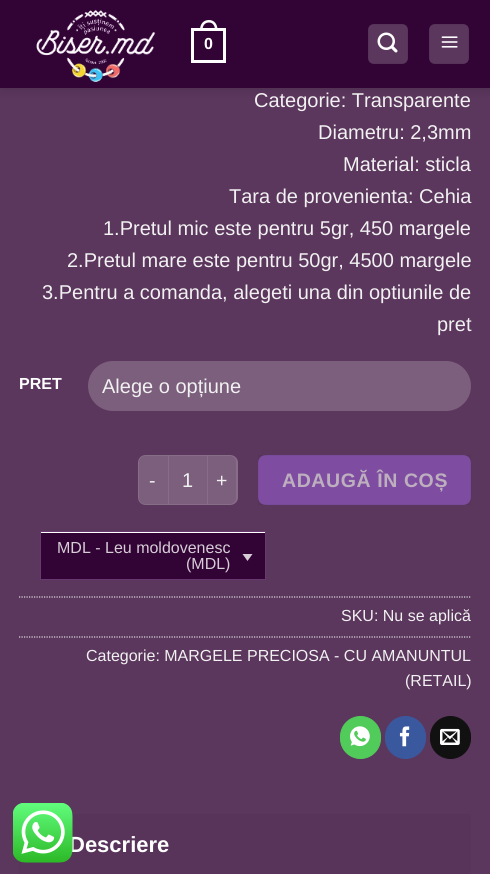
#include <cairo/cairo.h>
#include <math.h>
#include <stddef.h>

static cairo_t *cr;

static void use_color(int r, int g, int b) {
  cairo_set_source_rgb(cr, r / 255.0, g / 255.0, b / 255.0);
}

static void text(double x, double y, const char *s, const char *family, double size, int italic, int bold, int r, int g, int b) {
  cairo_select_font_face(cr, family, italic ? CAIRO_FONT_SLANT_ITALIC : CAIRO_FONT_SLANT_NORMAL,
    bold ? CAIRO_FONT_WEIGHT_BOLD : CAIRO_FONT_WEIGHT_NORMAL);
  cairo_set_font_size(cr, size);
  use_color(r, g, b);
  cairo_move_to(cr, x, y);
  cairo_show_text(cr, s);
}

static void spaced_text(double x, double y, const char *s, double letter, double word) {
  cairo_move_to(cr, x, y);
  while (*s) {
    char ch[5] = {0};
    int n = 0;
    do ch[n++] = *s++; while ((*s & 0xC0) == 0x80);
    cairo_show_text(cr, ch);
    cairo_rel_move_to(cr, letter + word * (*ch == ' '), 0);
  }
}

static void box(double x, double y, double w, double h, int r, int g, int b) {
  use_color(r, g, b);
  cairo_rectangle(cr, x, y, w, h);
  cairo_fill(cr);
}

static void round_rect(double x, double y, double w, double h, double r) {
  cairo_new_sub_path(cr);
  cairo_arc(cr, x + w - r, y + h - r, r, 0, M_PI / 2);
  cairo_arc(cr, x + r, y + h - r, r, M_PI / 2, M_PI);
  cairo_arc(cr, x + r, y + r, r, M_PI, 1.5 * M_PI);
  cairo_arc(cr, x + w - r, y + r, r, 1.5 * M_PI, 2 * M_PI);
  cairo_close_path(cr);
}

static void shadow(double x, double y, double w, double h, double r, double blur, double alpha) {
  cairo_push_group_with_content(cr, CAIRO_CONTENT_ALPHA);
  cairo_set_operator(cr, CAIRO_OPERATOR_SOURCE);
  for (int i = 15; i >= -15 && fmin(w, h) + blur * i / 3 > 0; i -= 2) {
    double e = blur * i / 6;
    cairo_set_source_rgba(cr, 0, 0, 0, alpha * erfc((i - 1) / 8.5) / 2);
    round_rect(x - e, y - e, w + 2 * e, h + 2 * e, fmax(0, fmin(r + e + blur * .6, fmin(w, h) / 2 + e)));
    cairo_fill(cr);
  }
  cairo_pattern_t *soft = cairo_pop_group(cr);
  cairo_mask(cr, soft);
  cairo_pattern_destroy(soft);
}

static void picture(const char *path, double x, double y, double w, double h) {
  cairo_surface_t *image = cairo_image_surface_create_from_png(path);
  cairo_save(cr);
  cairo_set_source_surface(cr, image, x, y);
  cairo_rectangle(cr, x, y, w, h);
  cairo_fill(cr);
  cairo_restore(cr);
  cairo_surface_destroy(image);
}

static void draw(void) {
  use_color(91, 54, 93);
  cairo_paint(cr);
  use_color(0, 0, 0);
  shadow(1, 1, 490, 88, 0, 6, 0.15);
  box(0, 0, 490, 88, 50, 4, 53);
  picture("img_01.png", 36, 9, 120, 73);
  cairo_rectangle(cr, 192.5, 29.5, 32, 32);
  use_color(255, 255, 255);
  cairo_set_line_width(cr, 3);
  cairo_stroke(cr);
  cairo_set_fill_rule(cr, CAIRO_FILL_RULE_EVEN_ODD);
  cairo_new_path(cr);
  cairo_move_to(cr, 209, 20);
  cairo_curve_to(cr, 214.5, 20, 217.5, 24.5, 217.5, 30);
  cairo_line_to(cr, 200, 30);
  cairo_curve_to(cr, 200, 24.5, 203, 20, 209, 20);
  cairo_close_path(cr);
  cairo_move_to(cr, 209, 22.5);
  cairo_curve_to(cr, 213, 22.5, 215, 26, 215, 30);
  cairo_line_to(cr, 202.5, 30);
  cairo_curve_to(cr, 202.5, 26, 204.5, 22.5, 209, 22.5);
  cairo_close_path(cr);
  cairo_fill(cr);
  use_color(91, 54, 93);
  round_rect(368, 24, 40, 40, 6);
  cairo_fill(cr);
  cairo_rectangle(cr, 368.5, 24.5, 39, 39);
  cairo_set_source_rgba(cr, 0, 0, 0, 0.05);
  cairo_set_line_width(cr, 1);
  cairo_stroke(cr);
  picture("img_02.png", 377, 32, 21, 21);
  use_color(91, 54, 93);
  round_rect(429, 24, 40, 40, 6);
  cairo_fill(cr);
  cairo_rectangle(cr, 429.5, 24.5, 39, 39);
  cairo_set_source_rgba(cr, 0, 0, 0, 0.05);
  cairo_stroke(cr);
  picture("img_03.png", 441, 36, 17, 12);
  use_color(124, 94, 125);
  round_rect(88, 361, 383, 50, 25);
  cairo_fill(cr);
  cairo_new_path(cr);
  cairo_move_to(cr, 146, 455);
  cairo_line_to(cr, 168, 455);
  cairo_line_to(cr, 168, 505);
  cairo_line_to(cr, 146, 505);
  cairo_curve_to(cr, 141.5, 505, 138, 501.5, 138, 497);
  cairo_line_to(cr, 138, 463);
  cairo_curve_to(cr, 138, 458.5, 141.5, 455, 146, 455);
  cairo_close_path(cr);
  cairo_fill(cr);
  cairo_set_source_rgba(cr, 1, 1, 1, 0.09);
  cairo_new_path(cr);
  cairo_move_to(cr, 145, 455);
  cairo_line_to(cr, 168, 455);
  cairo_line_to(cr, 168, 505);
  cairo_line_to(cr, 145, 505);
  cairo_curve_to(cr, 141, 505, 138, 502, 138, 498);
  cairo_line_to(cr, 138, 462);
  cairo_curve_to(cr, 138, 458, 141, 455, 145, 455);
  cairo_close_path(cr);
  cairo_move_to(cr, 145, 456);
  cairo_line_to(cr, 168, 456);
  cairo_line_to(cr, 168, 504);
  cairo_line_to(cr, 145, 504);
  cairo_curve_to(cr, 142, 504, 139, 501, 139, 498);
  cairo_line_to(cr, 139, 462);
  cairo_curve_to(cr, 139, 459, 142, 456, 145, 456);
  cairo_close_path(cr);
  cairo_fill(cr);
  use_color(124, 94, 125);
  cairo_rectangle(cr, 168.5, 455.5, 39, 49);
  cairo_fill_preserve(cr);
  use_color(136, 108, 137);
  cairo_stroke(cr);
  use_color(124, 94, 125);
  cairo_new_path(cr);
  cairo_move_to(cr, 208, 455);
  cairo_line_to(cr, 230, 455);
  cairo_curve_to(cr, 234.5, 455, 238, 458.5, 238, 463);
  cairo_line_to(cr, 238, 497);
  cairo_curve_to(cr, 238, 501.5, 234.5, 505, 230, 505);
  cairo_line_to(cr, 208, 505);
  cairo_close_path(cr);
  cairo_fill(cr);
  cairo_set_source_rgba(cr, 1, 1, 1, 0.09);
  cairo_new_path(cr);
  cairo_move_to(cr, 208, 455);
  cairo_line_to(cr, 230, 455);
  cairo_curve_to(cr, 234, 455, 238, 458, 238, 462);
  cairo_line_to(cr, 238, 498);
  cairo_curve_to(cr, 238, 502, 234, 505, 230, 505);
  cairo_line_to(cr, 208, 505);
  cairo_close_path(cr);
  cairo_move_to(cr, 208, 456);
  cairo_line_to(cr, 230, 456);
  cairo_curve_to(cr, 233, 456, 236, 459, 236, 462);
  cairo_line_to(cr, 236, 498);
  cairo_curve_to(cr, 236, 501, 233, 504, 230, 504);
  cairo_line_to(cr, 208, 504);
  cairo_close_path(cr);
  cairo_fill(cr);
  use_color(126, 77, 161);
  round_rect(258, 455, 213, 50, 8);
  cairo_fill(cr);
  cairo_rectangle(cr, 258.5, 455.5, 212, 49);
  cairo_set_source_rgba(cr, 0.141, 0.086, 0.145, 0.05);
  cairo_stroke(cr);
  box(41, 532, 224, 1, 255, 255, 255);
  cairo_rectangle(cr, 40.5, 531.5, 225, 48);
  use_color(106, 56, 113);
  cairo_stroke(cr);
  box(41, 533, 224, 46, 50, 4, 53);
  use_color(214, 205, 215);
  cairo_set_fill_rule(cr, CAIRO_FILL_RULE_WINDING);
  cairo_new_path(cr);
  cairo_move_to(cr, 242.5, 554);
  cairo_line_to(cr, 252.5, 554);
  cairo_line_to(cr, 247.5, 561);
  cairo_close_path(cr);
  cairo_fill(cr);
  cairo_new_path(cr);
  cairo_move_to(cr, 19, 597);
  cairo_line_to(cr, 471, 597);
  use_color(221, 221, 221);
  cairo_set_line_width(cr, 1.2);
  cairo_set_dash(cr, (double[]){1.25, 1.25}, 2, 0);
  cairo_stroke(cr);
  cairo_new_path(cr);
  cairo_move_to(cr, 19, 637);
  cairo_line_to(cr, 471, 637);
  cairo_stroke(cr);
  use_color(81, 203, 90);
  round_rect(340.5, 716.5, 40, 42, 20);
  cairo_fill_preserve(cr);
  cairo_set_line_width(cr, 1);
  cairo_set_dash(cr, NULL, 0, 0);
  cairo_stroke(cr);
  picture("img_04.png", 350, 726, 20, 21);
  use_color(58, 88, 157);
  round_rect(385.5, 716.5, 40, 42, 20);
  cairo_fill_preserve(cr);
  cairo_stroke(cr);
  picture("img_05.png", 399, 726, 11, 21);
  use_color(17, 17, 17);
  round_rect(430.5, 716.5, 40, 42, 20);
  cairo_fill_preserve(cr);
  cairo_stroke(cr);
  picture("img_06.png", 440, 728, 20, 17);
  box(19, 814, 452, 60, 88, 52, 90);
  text(204, 49, "0", "Liberation Sans", 16, 0, 1, 255, 255, 255);
  text(254, 107, "Categorie: Transparente", "Liberation Sans", 20, 0, 0, 241, 241, 241);
  text(318, 139, "Diametru: 2,3mm", "Liberation Sans", 20, 0, 0, 241, 241, 241);
  text(343, 171, "Material: sticla", "Liberation Sans", 20, 0, 0, 241, 241, 241);
  text(229, 203, "Tara de provenienta: Cehia", "Liberation Sans", 20, 0, 0, 241, 241, 241);
  text(103, 235, "1.Pretul mic este pentru 5gr, 450 margele", "Liberation Sans", 20, 0, 0, 241, 241, 241);
  text(67, 267, "2.Pretul mare este pentru 50gr, 4500 margele", "Liberation Sans", 20, 0, 0, 241, 241, 241);
  text(42, 299, "3.Pentru a comanda, alegeti una din optiunile de", "Liberation Sans", 20, 0, 0, 241, 241, 241);
  text(437, 331, "pret", "Liberation Sans", 20, 0, 0, 241, 241, 241);
  text(19, 389, "PRET", "Liberation Sans", 16, 0, 1, 255, 255, 255);
  text(102, 393, "Alege o opțiune", "Liberation Sans", 20, 0, 0, 241, 241, 241);
  cairo_set_font_size(cr, 19.5);
  spaced_text(149, 487, "-", 0.6, 0);
  text(182, 487, "1", "Liberation Sans", 20, 0, 0, 241, 241, 241);
  cairo_set_font_size(cr, 19.5);
  spaced_text(216, 487, "+", 0.6, 0);
  cairo_select_font_face(cr, "Liberation Sans", CAIRO_FONT_SLANT_NORMAL, CAIRO_FONT_WEIGHT_BOLD);
  use_color(189, 175, 190);
  spaced_text(282, 487, "ADAUGĂ ÎN COȘ", 0.6, 0);
  text(57, 553, "MDL - Leu moldovenesc", "Liberation Sans", 16, 0, 0, 214, 205, 215);
  text(186, 569, "(MDL)", "Liberation Sans", 16, 0, 0, 214, 205, 215);
  text(341, 621, "SKU: Nu se aplică", "Liberation Sans", 16, 0, 0, 241, 241, 241);
  text(86, 661, "Categorie: MARGELE PRECIOSA - CU AMANUNTUL", "Liberation Sans", 16, 0, 0, 241, 241, 241);
  text(405, 686, "(RETAIL)", "Liberation Sans", 16, 0, 0, 241, 241, 241);
  text(69, 852, "Descriere", "Liberation Sans", 22, 0, 1, 255, 255, 255);
  picture("img_07.png", 13, 803, 60, 60);
}

int main(void) {
  cairo_surface_t *surface = cairo_image_surface_create(CAIRO_FORMAT_RGB24, 490, 874);
  cr = cairo_create(surface);
  cairo_font_options_t *options = cairo_font_options_create();
  cairo_font_options_set_hint_metrics(options, CAIRO_HINT_METRICS_OFF);
  cairo_font_options_set_hint_style(options, CAIRO_HINT_STYLE_NONE);
  cairo_set_font_options(cr, options);
  cairo_set_miter_limit(cr, 4);
  draw();
  cairo_surface_write_to_png(surface, "out.png");
  cairo_font_options_destroy(options);
  cairo_destroy(cr);
  cairo_surface_destroy(surface);
  return 0;
}
